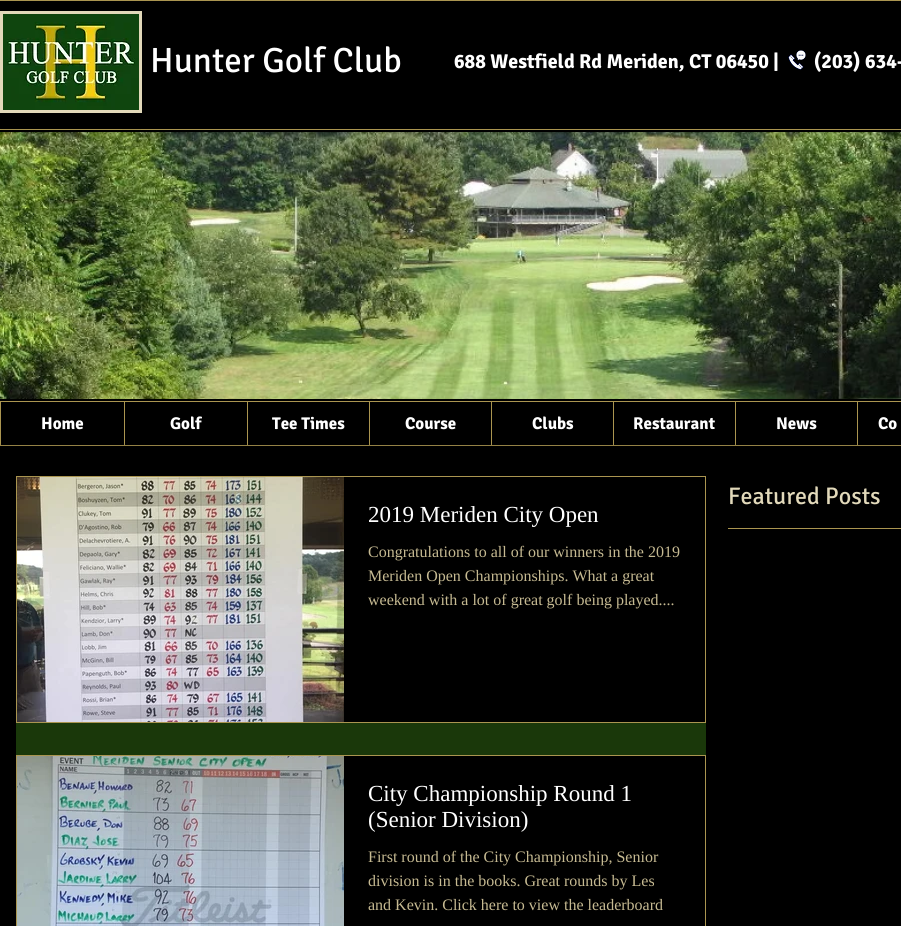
#include <cairo/cairo.h>
#include <math.h>
#include <stddef.h>

static cairo_t *cr;

static void use_color(int r, int g, int b) {
  cairo_set_source_rgb(cr, r / 255.0, g / 255.0, b / 255.0);
}

static void text(double x, double y, const char *s, const char *family, double size, int italic, int bold, int r, int g, int b) {
  cairo_select_font_face(cr, family, italic ? CAIRO_FONT_SLANT_ITALIC : CAIRO_FONT_SLANT_NORMAL,
    bold ? CAIRO_FONT_WEIGHT_BOLD : CAIRO_FONT_WEIGHT_NORMAL);
  cairo_set_font_size(cr, size);
  use_color(r, g, b);
  cairo_move_to(cr, x, y);
  cairo_show_text(cr, s);
}

static void box(double x, double y, double w, double h, int r, int g, int b) {
  use_color(r, g, b);
  cairo_rectangle(cr, x, y, w, h);
  cairo_fill(cr);
}

static void round_rect(double x, double y, double w, double h, double r) {
  cairo_new_sub_path(cr);
  cairo_arc(cr, x + w - r, y + h - r, r, 0, M_PI / 2);
  cairo_arc(cr, x + r, y + h - r, r, M_PI / 2, M_PI);
  cairo_arc(cr, x + r, y + r, r, M_PI, 1.5 * M_PI);
  cairo_arc(cr, x + w - r, y + r, r, 1.5 * M_PI, 2 * M_PI);
  cairo_close_path(cr);
}

static void shadow(double x, double y, double w, double h, double r, double blur, double alpha) {
  cairo_push_group_with_content(cr, CAIRO_CONTENT_ALPHA);
  cairo_set_operator(cr, CAIRO_OPERATOR_SOURCE);
  for (int i = 15; i >= -15 && fmin(w, h) + blur * i / 3 > 0; i -= 2) {
    double e = blur * i / 6;
    cairo_set_source_rgba(cr, 0, 0, 0, alpha * erfc((i - 1) / 8.5) / 2);
    round_rect(x - e, y - e, w + 2 * e, h + 2 * e, fmax(0, fmin(r + e + blur * .6, fmin(w, h) / 2 + e)));
    cairo_fill(cr);
  }
  cairo_pattern_t *soft = cairo_pop_group(cr);
  cairo_mask(cr, soft);
  cairo_pattern_destroy(soft);
}

static void picture(const char *path, double x, double y, double w, double h) {
  cairo_surface_t *image = cairo_image_surface_create_from_png(path);
  cairo_save(cr);
  cairo_set_source_surface(cr, image, x, y);
  cairo_rectangle(cr, x, y, w, h);
  cairo_fill(cr);
  cairo_restore(cr);
  cairo_surface_destroy(image);
}

static void draw(void) {
  use_color(0, 0, 0);
  cairo_paint(cr);
  picture("img_03.png", 0, 132, 901, 267);
  cairo_save(cr);
  cairo_rectangle(cr, 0, 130, 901, 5);
  cairo_clip(cr);
  shadow(-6, 1, 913, 130, 0, 2, 0.6);
  cairo_restore(cr);
  cairo_rectangle(cr, -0.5, 0.5, 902, 129);
  use_color(170, 149, 80);
  cairo_set_line_width(cr, 1);
  cairo_stroke(cr);
  box(0, 11, 142, 102, 226, 217, 186);
  picture("img_01.png", 3, 14, 136, 96);
  box(1, 129, 19, 1, 165, 145, 78);
  box(122, 129, 19, 1, 165, 145, 78);
  cairo_rectangle(cr, 0.5, 401.5, 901, 44);
  use_color(170, 149, 80);
  cairo_stroke(cr);
  box(124, 402, 1, 43, 170, 149, 80);
  box(247, 402, 1, 43, 170, 149, 80);
  box(369, 402, 1, 43, 170, 149, 80);
  box(491, 402, 1, 43, 170, 149, 80);
  box(613, 402, 1, 43, 170, 149, 80);
  box(735, 402, 1, 43, 170, 149, 80);
  box(857, 402, 1, 43, 170, 149, 80);
  cairo_save(cr);
  cairo_rectangle(cr, 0, 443, 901, 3);
  cairo_clip(cr);
  use_color(0, 0, 0);
  shadow(0, 447, 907, 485, 0, 2, 0.6);
  cairo_restore(cr);
  box(16, 723, 690, 32, 26, 56, 10);
  cairo_rectangle(cr, 16.5, 476.5, 689, 246);
  use_color(170, 149, 80);
  cairo_stroke(cr);
  picture("img_04.png", 17, 477, 327, 245);
  cairo_rectangle(cr, 16.5, 755.5, 689, 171);
  cairo_stroke(cr);
  picture("img_05.png", 17, 756, 327, 170);
  box(728, 528, 173, 1, 170, 149, 80);
  text(150, 72, "Hunter Golf Club", "Signika", 35, 0, 0, 255, 255, 255);
  text(454, 68, "688 Westfield Rd Meriden, CT 06450 |        (203) 634-", "Signika", 20, 0, 1, 255, 255, 255);
  picture("img_02.png", 788, 50, 18, 20);
  text(41, 429, "Home", "Signika", 17, 0, 1, 255, 255, 255);
  text(170, 429, "Golf", "Signika", 17, 0, 1, 255, 255, 255);
  text(272, 429, "Tee Times", "Signika", 17, 0, 1, 255, 255, 255);
  text(405, 429, "Course", "Signika", 17, 0, 1, 255, 255, 255);
  text(532, 429, "Clubs", "Signika", 17, 0, 1, 255, 255, 255);
  text(633, 429, "Restaurant", "Signika", 17, 0, 1, 255, 255, 255);
  text(776, 429, "News", "Signika", 17, 0, 1, 255, 255, 255);
  text(878, 429, "Co", "Signika", 17, 0, 1, 255, 255, 255);
  text(728, 504, "Featured Posts", "Signika", 24, 0, 0, 226, 217, 186);
  text(368, 522, "2019 Meriden City Open", "Liberation Serif", 23, 0, 0, 255, 255, 255);
  text(368, 557, "Congratulations to all of our winners in the 2019", "Liberation Serif", 16, 0, 0, 198, 186, 146);
  text(368, 581, "Meriden Open Championships. What a great", "Liberation Serif", 16, 0, 0, 198, 186, 146);
  text(368, 605, "weekend with a lot of great golf being played....", "Liberation Serif", 16, 0, 0, 198, 186, 146);
  text(368, 801, "City Championship Round 1", "Liberation Serif", 23, 0, 0, 255, 255, 255);
  text(368, 827, "(Senior Division)", "Liberation Serif", 23, 0, 0, 255, 255, 255);
  text(368, 862, "First round of the City Championship, Senior", "Liberation Serif", 16, 0, 0, 198, 186, 146);
  text(368, 886, "division is in the books. Great rounds by Les", "Liberation Serif", 16, 0, 0, 198, 186, 146);
  text(368, 910, "and Kevin. Click here to view the leaderboard", "Liberation Serif", 16, 0, 0, 198, 186, 146);
}

int main(void) {
  cairo_surface_t *surface = cairo_image_surface_create(CAIRO_FORMAT_RGB24, 901, 926);
  cr = cairo_create(surface);
  cairo_font_options_t *options = cairo_font_options_create();
  cairo_font_options_set_hint_metrics(options, CAIRO_HINT_METRICS_OFF);
  cairo_font_options_set_hint_style(options, CAIRO_HINT_STYLE_NONE);
  cairo_set_font_options(cr, options);
  cairo_set_miter_limit(cr, 4);
  draw();
  cairo_surface_write_to_png(surface, "out.png");
  cairo_font_options_destroy(options);
  cairo_destroy(cr);
  cairo_surface_destroy(surface);
  return 0;
}
